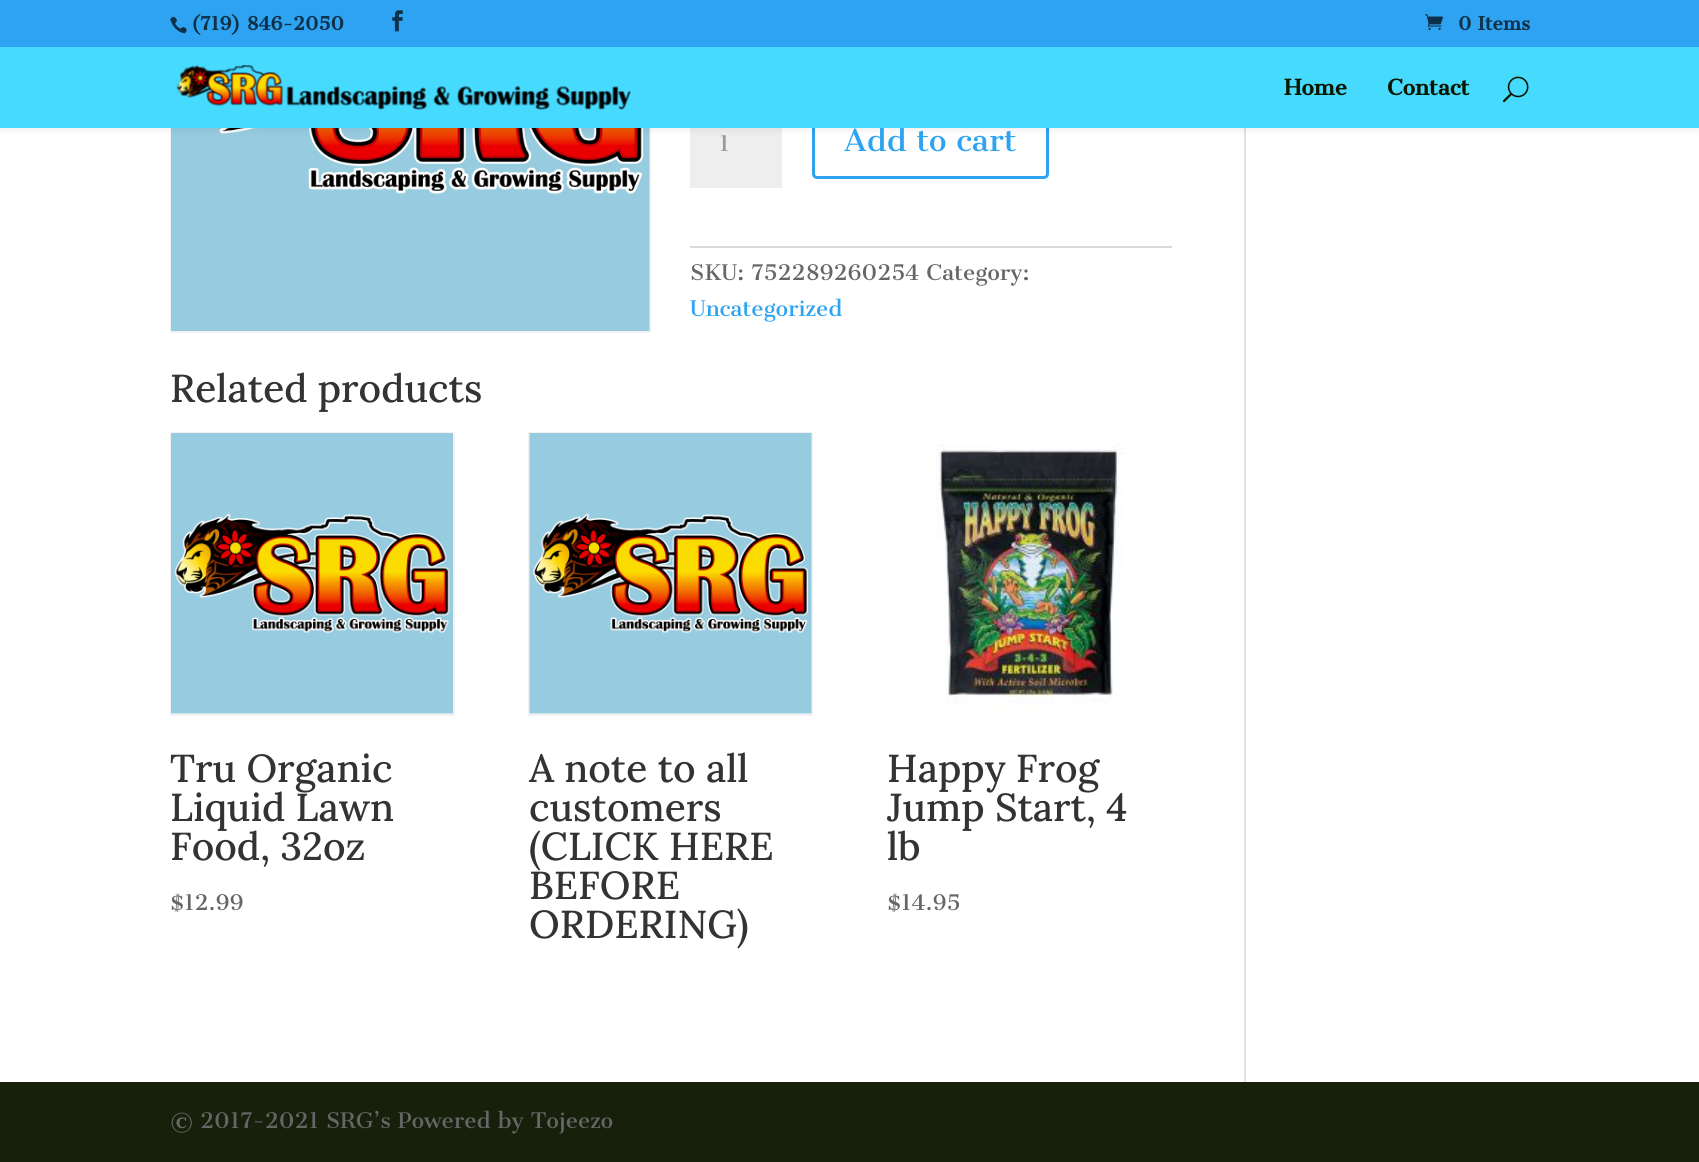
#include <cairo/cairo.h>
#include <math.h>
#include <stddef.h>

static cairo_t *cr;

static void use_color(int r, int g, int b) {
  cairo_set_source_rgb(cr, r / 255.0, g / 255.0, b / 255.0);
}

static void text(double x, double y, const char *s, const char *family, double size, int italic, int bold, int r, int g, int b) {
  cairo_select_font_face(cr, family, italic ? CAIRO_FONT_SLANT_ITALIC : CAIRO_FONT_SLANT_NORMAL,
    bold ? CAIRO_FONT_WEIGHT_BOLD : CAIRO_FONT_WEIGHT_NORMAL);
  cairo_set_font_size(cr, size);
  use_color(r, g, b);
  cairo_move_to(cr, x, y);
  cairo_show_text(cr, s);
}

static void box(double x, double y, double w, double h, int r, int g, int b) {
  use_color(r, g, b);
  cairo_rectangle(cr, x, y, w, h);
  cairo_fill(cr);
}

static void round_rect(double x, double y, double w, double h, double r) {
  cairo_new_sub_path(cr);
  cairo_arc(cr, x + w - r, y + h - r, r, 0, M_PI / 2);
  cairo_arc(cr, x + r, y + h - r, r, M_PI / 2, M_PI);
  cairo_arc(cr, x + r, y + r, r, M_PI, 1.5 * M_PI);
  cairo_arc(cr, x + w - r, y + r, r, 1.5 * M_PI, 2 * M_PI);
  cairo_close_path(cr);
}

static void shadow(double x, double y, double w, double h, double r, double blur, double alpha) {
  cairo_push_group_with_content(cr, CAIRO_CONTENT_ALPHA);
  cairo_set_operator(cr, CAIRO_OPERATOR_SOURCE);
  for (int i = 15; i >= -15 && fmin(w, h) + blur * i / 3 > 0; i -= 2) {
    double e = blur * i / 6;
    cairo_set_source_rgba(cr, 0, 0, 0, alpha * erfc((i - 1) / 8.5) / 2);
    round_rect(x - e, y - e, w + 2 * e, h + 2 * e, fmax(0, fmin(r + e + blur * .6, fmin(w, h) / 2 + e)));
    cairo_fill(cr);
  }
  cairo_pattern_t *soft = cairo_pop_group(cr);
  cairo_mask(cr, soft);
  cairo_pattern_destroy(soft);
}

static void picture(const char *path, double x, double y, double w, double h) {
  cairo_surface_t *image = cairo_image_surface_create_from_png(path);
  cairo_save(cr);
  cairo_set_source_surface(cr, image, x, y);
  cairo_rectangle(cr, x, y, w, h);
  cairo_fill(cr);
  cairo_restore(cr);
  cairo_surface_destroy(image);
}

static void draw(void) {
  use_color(255, 255, 255);
  cairo_paint(cr);
  cairo_rectangle(cr, 171, -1, 479, 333);
  use_color(242, 242, 242);
  cairo_stroke(cr);
  picture("img_06.png", 171, 128, 479, 203);
  box(690, 128, 92, 60, 238, 238, 238);
  round_rect(813.5, 105.5, 234, 72, 3.5);
  use_color(46, 163, 242);
  cairo_set_line_width(cr, 3);
  cairo_stroke(cr);
  box(1244, 128, 2, 954, 226, 226, 226);
  use_color(0, 0, 0);
  shadow(0, 47, 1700, 81, 0, 5, 0.1);
  box(0, 0, 1699, 47, 46, 163, 242);
  picture("img_01.png", 170, 16, 17, 18);
  picture("img_02.png", 392, 10, 11, 22);
  picture("img_03.png", 1425, 14, 18, 16);
  box(690, 246, 482, 2, 218, 218, 218);
  cairo_rectangle(cr, 171, 433, 283, 282);
  use_color(242, 242, 242);
  cairo_set_line_width(cr, 2);
  cairo_stroke(cr);
  picture("img_07.png", 171, 433, 282, 281);
  cairo_rectangle(cr, 529, 433, 283, 282);
  cairo_stroke(cr);
  picture("img_08.png", 529, 433, 283, 281);
  picture("img_09.png", 935, 443, 189, 268);
  box(0, 1082, 1699, 80, 22, 32, 10);
  text(191, 30, "(719) 846-2050", "Cantata One", 18, 0, 1, 14, 49, 73);
  text(1458, 30, "0 Items", "Cantata One", 18, 0, 1, 14, 49, 73);
  text(719, 151, "1", "Cantata One", 21, 0, 0, 153, 153, 153);
  text(844, 151, "Add to cart", "Cantata One", 30, 0, 0, 46, 163, 242);
  box(0, 47, 1699, 81, 71, 218, 255);
  picture("img_05.png", 1502, 76, 27, 27);
  text(1387, 95, "Contact", "Cantata One", 21, 0, 1, 11, 22, 0);
  text(1284, 95, "Home", "Cantata One", 21, 0, 1, 11, 22, 0);
  picture("img_04.png", 176, 64, 455, 46);
  text(690, 280, "SKU: 752289260254 Category:", "Cantata One", 21, 0, 0, 102, 102, 102);
  text(690, 316, "Uncategorized", "Cantata One", 21, 0, 0, 46, 163, 242);
  text(170, 402, "Related products", "Lora Medium", 39, 0, 0, 51, 51, 51);
  text(170, 782, "Tru Organic", "Lora Medium", 39, 0, 0, 51, 51, 51);
  text(170, 821, "Liquid Lawn", "Lora Medium", 39, 0, 0, 51, 51, 51);
  text(170, 860, "Food, 32oz", "Lora Medium", 39, 0, 0, 51, 51, 51);
  text(170, 910, "$12.99", "Cantata One", 21, 0, 0, 102, 102, 102);
  text(529, 782, "A note to all", "Lora Medium", 39, 0, 0, 51, 51, 51);
  text(529, 821, "customers", "Lora Medium", 39, 0, 0, 51, 51, 51);
  text(529, 860, "(CLICK HERE", "Lora Medium", 39, 0, 0, 51, 51, 51);
  text(529, 899, "BEFORE", "Lora Medium", 39, 0, 0, 51, 51, 51);
  text(529, 938, "ORDERING)", "Lora Medium", 39, 0, 0, 51, 51, 51);
  text(887, 782, "Happy Frog", "Lora Medium", 39, 0, 0, 51, 51, 51);
  text(887, 821, "Jump Start, 4", "Lora Medium", 39, 0, 0, 51, 51, 51);
  text(887, 860, "lb", "Lora Medium", 39, 0, 0, 51, 51, 51);
  text(887, 910, "$14.95", "Cantata One", 21, 0, 0, 102, 102, 102);
  text(170, 1128, "© 2017-2021 SRG’s Powered by Tojeezo", "Cantata One", 21, 0, 0, 102, 102, 102);
}

int main(void) {
  cairo_surface_t *surface = cairo_image_surface_create(CAIRO_FORMAT_RGB24, 1699, 1162);
  cr = cairo_create(surface);
  cairo_font_options_t *options = cairo_font_options_create();
  cairo_font_options_set_hint_metrics(options, CAIRO_HINT_METRICS_OFF);
  cairo_font_options_set_hint_style(options, CAIRO_HINT_STYLE_NONE);
  cairo_set_font_options(cr, options);
  cairo_set_miter_limit(cr, 4);
  draw();
  cairo_surface_write_to_png(surface, "out.png");
  cairo_font_options_destroy(options);
  cairo_destroy(cr);
  cairo_surface_destroy(surface);
  return 0;
}
